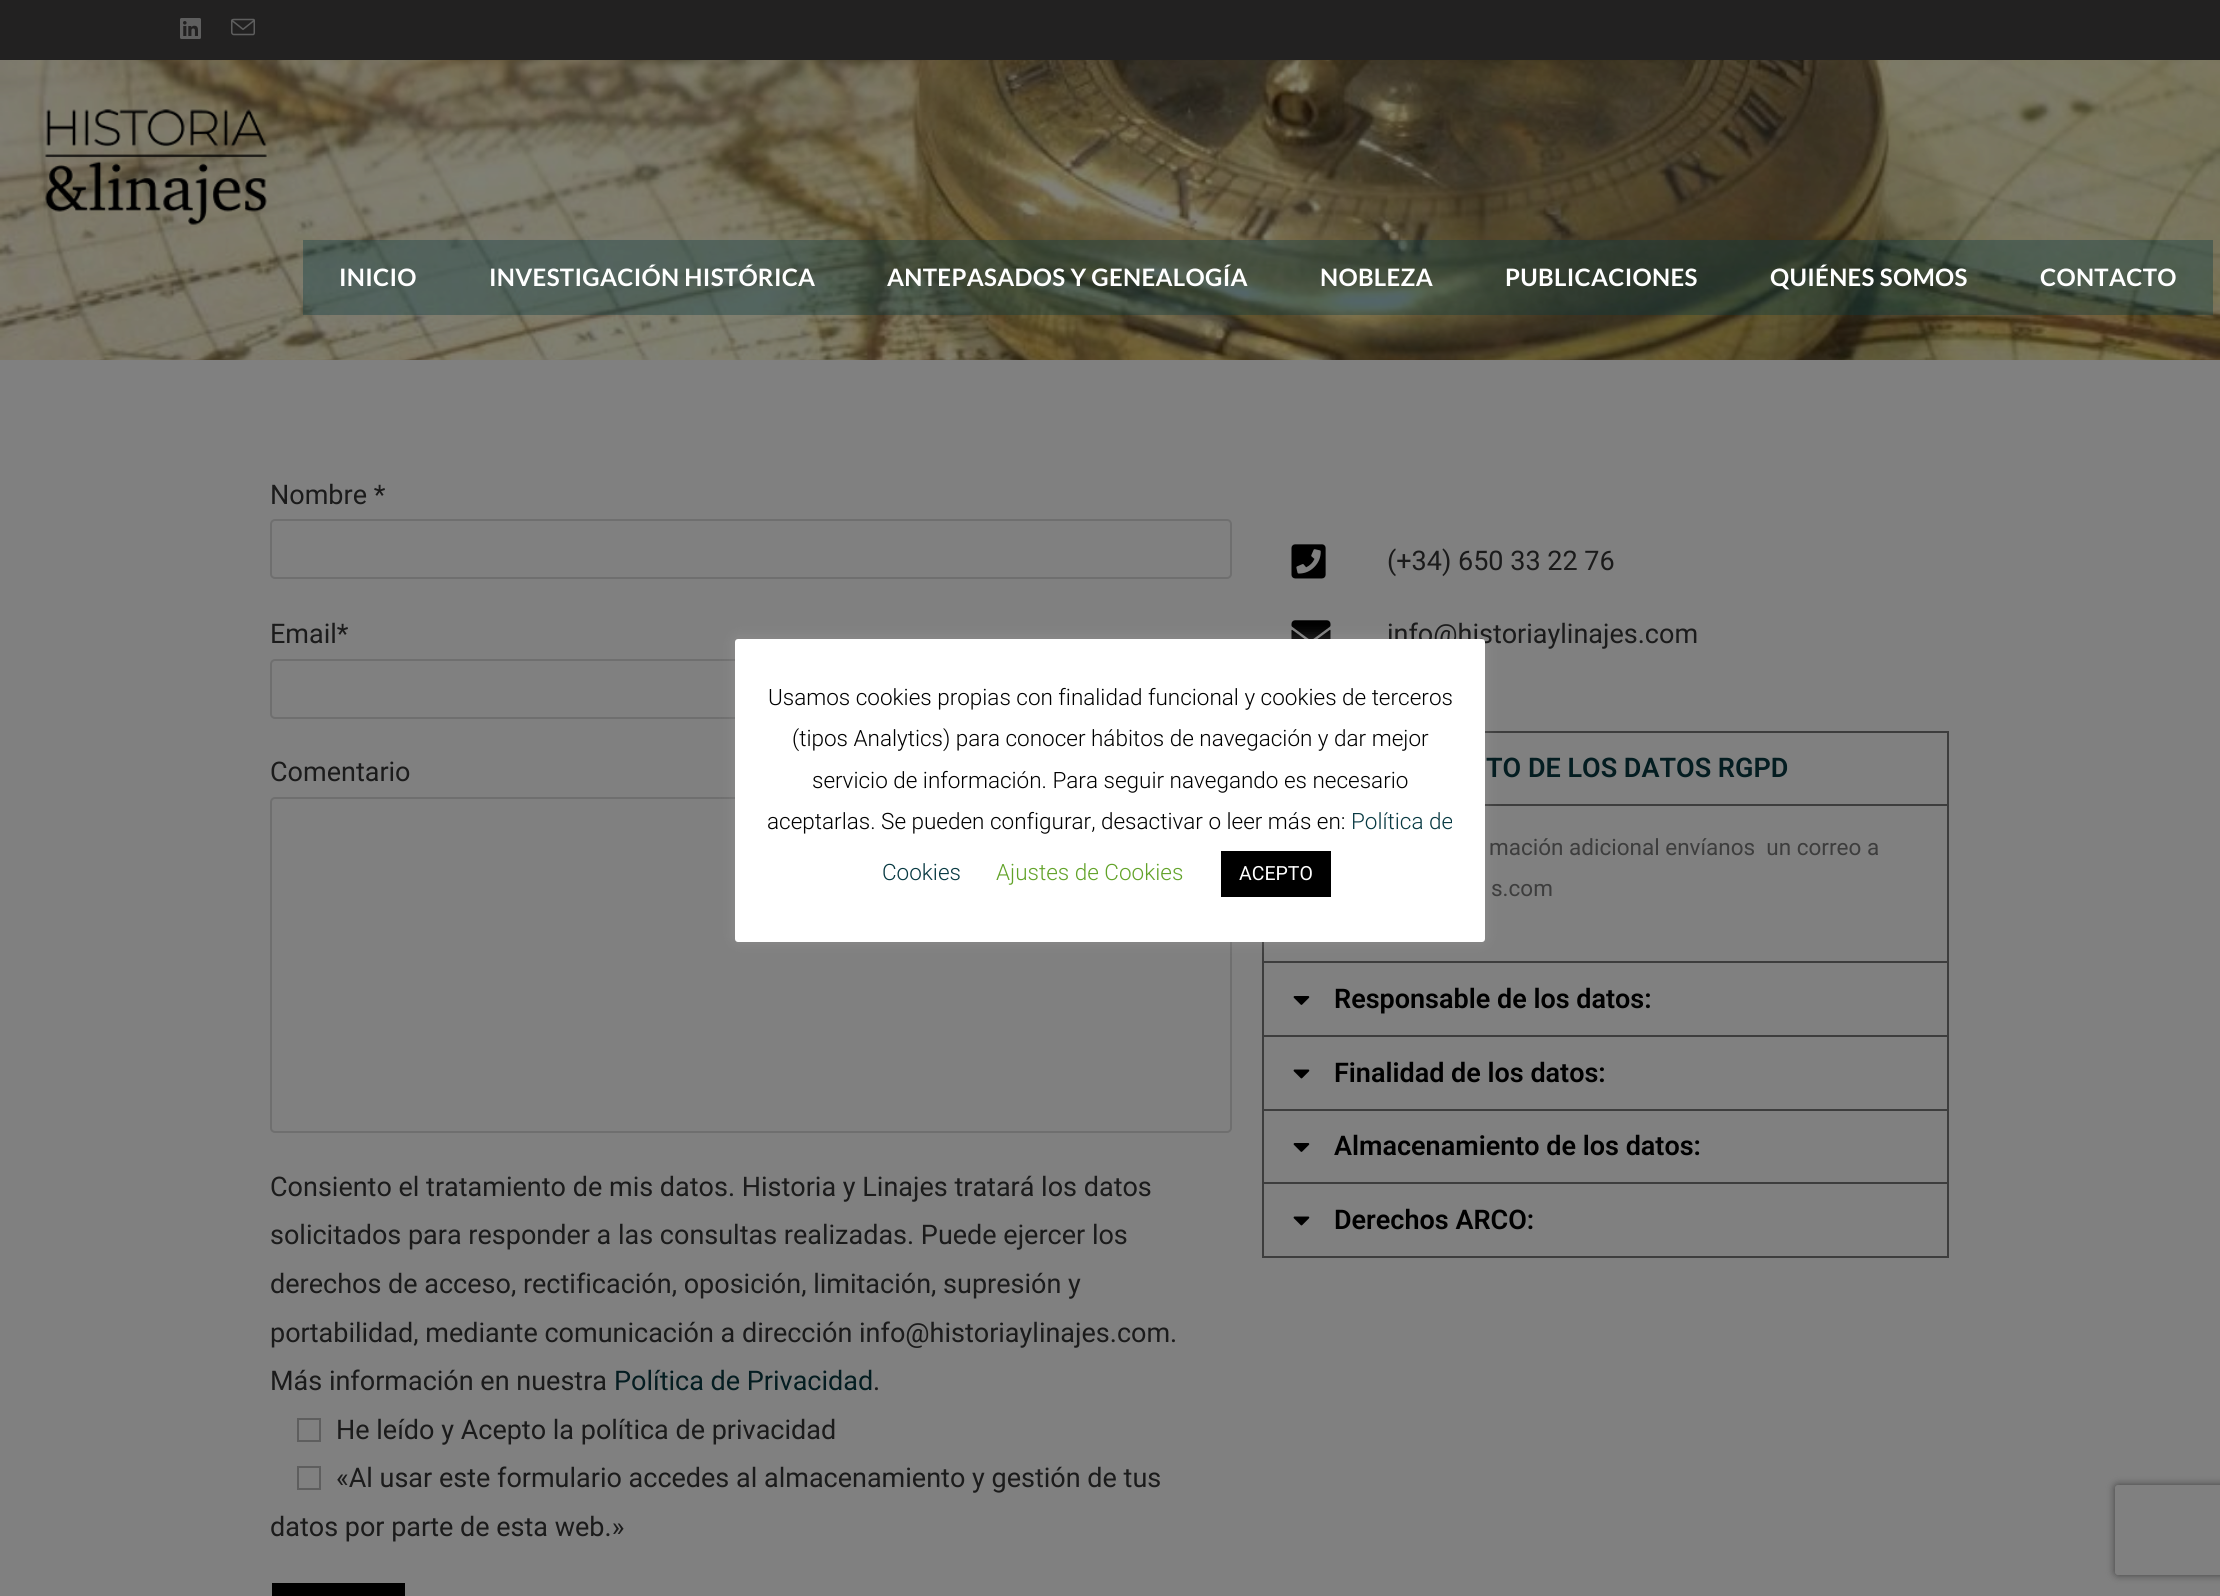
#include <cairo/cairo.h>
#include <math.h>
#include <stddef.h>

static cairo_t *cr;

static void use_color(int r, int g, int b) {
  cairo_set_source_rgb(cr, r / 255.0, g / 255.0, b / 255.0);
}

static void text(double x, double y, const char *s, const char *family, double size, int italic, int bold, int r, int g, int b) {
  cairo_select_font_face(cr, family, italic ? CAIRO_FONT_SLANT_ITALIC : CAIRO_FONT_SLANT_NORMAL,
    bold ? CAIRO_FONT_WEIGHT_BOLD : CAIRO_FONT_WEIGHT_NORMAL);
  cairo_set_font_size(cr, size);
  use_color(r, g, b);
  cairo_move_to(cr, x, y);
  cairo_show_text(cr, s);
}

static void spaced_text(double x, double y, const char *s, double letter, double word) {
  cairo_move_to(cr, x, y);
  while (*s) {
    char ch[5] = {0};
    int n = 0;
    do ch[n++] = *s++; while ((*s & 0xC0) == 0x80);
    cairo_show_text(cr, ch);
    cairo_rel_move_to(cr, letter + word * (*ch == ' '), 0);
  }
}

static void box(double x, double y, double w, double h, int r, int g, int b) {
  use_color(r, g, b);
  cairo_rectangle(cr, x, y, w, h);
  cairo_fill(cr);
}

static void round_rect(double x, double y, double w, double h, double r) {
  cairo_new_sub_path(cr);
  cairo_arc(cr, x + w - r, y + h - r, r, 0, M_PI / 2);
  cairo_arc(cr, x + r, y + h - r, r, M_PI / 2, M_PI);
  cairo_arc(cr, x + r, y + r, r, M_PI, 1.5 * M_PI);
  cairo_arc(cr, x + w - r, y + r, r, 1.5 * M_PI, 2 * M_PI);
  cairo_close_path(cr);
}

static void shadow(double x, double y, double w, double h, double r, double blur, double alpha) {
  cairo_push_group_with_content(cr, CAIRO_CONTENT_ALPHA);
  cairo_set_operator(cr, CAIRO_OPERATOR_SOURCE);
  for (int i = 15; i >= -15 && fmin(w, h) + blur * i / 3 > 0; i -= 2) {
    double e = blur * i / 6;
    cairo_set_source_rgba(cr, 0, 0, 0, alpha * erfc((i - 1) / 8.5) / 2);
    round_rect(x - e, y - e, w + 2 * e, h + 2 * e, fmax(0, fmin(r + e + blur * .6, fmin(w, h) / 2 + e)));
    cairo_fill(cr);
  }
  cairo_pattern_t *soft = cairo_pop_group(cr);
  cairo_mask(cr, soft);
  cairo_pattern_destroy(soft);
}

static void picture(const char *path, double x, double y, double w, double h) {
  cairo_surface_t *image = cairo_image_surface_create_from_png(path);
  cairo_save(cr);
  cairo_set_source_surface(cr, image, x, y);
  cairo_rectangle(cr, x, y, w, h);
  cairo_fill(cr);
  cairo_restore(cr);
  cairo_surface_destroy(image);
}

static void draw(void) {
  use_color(128, 128, 128);
  cairo_paint(cr);
  box(0, 0, 2220, 60, 34, 33, 33);
  picture("img_01.png", 180, 18, 21, 21);
  picture("img_02.png", 231, 18, 24, 18);
  picture("img_04.png", 0, 60, 2220, 300);
  picture("img_03.png", 45, 109, 222, 116);
  cairo_set_source_rgba(cr, 0.027, 0.224, 0.259, 0.36);
  cairo_rectangle(cr, 303, 240, 150, 75);
  cairo_fill(cr);
  cairo_rectangle(cr, 453, 240, 399, 75);
  cairo_fill(cr);
  cairo_rectangle(cr, 852, 240, 432, 75);
  cairo_fill(cr);
  cairo_rectangle(cr, 1284, 240, 186, 75);
  cairo_fill(cr);
  cairo_rectangle(cr, 1470, 240, 264, 75);
  cairo_fill(cr);
  cairo_rectangle(cr, 1734, 240, 270, 75);
  cairo_fill(cr);
  cairo_rectangle(cr, 2004, 240, 209, 75);
  cairo_fill(cr);
  round_rect(271, 520, 960, 58, 4);
  use_color(111, 111, 111);
  cairo_stroke(cr);
  round_rect(271, 660, 960, 58, 4);
  cairo_stroke(cr);
  round_rect(271, 798, 960, 334, 4);
  cairo_stroke(cr);
  cairo_rectangle(cr, 298, 1419, 22, 22);
  use_color(94, 94, 94);
  cairo_stroke(cr);
  cairo_rectangle(cr, 298, 1467, 22, 22);
  cairo_stroke(cr);
  box(272, 1583, 133, 13, 0, 0, 0);
  picture("img_05.png", 1291, 544, 35, 35);
  picture("img_06.png", 1291, 620, 40, 19);
  cairo_rectangle(cr, 1263, 732, 685, 230);
  use_color(61, 61, 61);
  cairo_stroke(cr);
  box(1485, 804, 462, 2, 61, 61, 61);
  box(1947, 963, 2, 147, 61, 61, 61);
  box(1262, 1035, 687, 2, 61, 61, 61);
  box(1262, 963, 2, 74, 61, 61, 61);
  picture("img_07.png", 1293, 996, 17, 9);
  box(1262, 1109, 687, 2, 61, 61, 61);
  box(1262, 1037, 2, 73, 61, 61, 61);
  picture("img_08.png", 1293, 1069, 17, 10);
  box(1947, 1110, 2, 147, 61, 61, 61);
  box(1262, 1182, 687, 2, 61, 61, 61);
  box(1262, 1110, 2, 74, 61, 61, 61);
  picture("img_07.png", 1293, 1143, 17, 9);
  box(1262, 1256, 687, 2, 61, 61, 61);
  box(1262, 1184, 2, 73, 61, 61, 61);
  picture("img_08.png", 1293, 1216, 17, 10);
  use_color(172, 171, 171);
  shadow(735, 638, 750, 303, 3, 7.5, 0.3);
  cairo_save(cr);
  cairo_set_fill_rule(cr, CAIRO_FILL_RULE_EVEN_ODD);
  cairo_new_path(cr);
  cairo_move_to(cr, 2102, 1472);
  cairo_line_to(cr, 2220, 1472);
  cairo_line_to(cr, 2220, 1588);
  cairo_line_to(cr, 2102, 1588);
  cairo_close_path(cr);
  cairo_move_to(cr, 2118, 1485);
  cairo_line_to(cr, 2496, 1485);
  cairo_curve_to(cr, 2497.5, 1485, 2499, 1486.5, 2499, 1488);
  cairo_line_to(cr, 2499, 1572);
  cairo_curve_to(cr, 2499, 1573.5, 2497.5, 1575, 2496, 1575);
  cairo_line_to(cr, 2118, 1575);
  cairo_curve_to(cr, 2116.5, 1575, 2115, 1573.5, 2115, 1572);
  cairo_line_to(cr, 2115, 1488);
  cairo_curve_to(cr, 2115, 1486.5, 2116.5, 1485, 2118, 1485);
  cairo_close_path(cr);
  cairo_clip(cr);
  use_color(64, 64, 64);
  shadow(2115, 1485, 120, 90, 3, 4, 1);
  cairo_restore(cr);
  cairo_select_font_face(cr, "Lato", CAIRO_FONT_SLANT_NORMAL, CAIRO_FONT_WEIGHT_BOLD);
  cairo_set_font_size(cr, 24);
  use_color(255, 255, 255);
  spaced_text(339, 286, "INICIO", 0.3, 0);
  spaced_text(489, 286, "INVESTIGACIÓN HISTÓRICA", 0.3, 0);
  spaced_text(887, 286, "ANTEPASADOS Y GENEALOGÍA", 0.3, 0);
  spaced_text(1320, 286, "NOBLEZA", 0.3, 0);
  spaced_text(1505, 286, "PUBLICACIONES", 0.3, 0);
  spaced_text(1770, 286, "QUIÉNES SOMOS", 0.3, 0);
  spaced_text(2040, 286, "CONTACTO", 0.3, 0);
  text(270, 504, "Nombre *", "Roboto", 27, 0, 0, 27, 27, 27);
  text(270, 643, "Email*", "Roboto", 27, 0, 0, 27, 27, 27);
  text(270, 781, "Comentario", "Roboto", 27, 0, 0, 27, 27, 27);
  text(270, 1196, "Consiento el tratamiento de mis datos. Historia y Linajes tratará los datos", "Roboto", 27, 0, 0, 27, 27, 27);
  text(270, 1244, "solicitados para responder a las consultas realizadas. Puede ejercer los", "Roboto", 27, 0, 0, 27, 27, 27);
  text(270, 1293, "derechos de acceso, rectificación, oposición, limitación, supresión y", "Roboto", 27, 0, 0, 27, 27, 27);
  text(270, 1342, "portabilidad, mediante comunicación a dirección info@historiaylinajes.com.", "Roboto", 27, 0, 0, 27, 27, 27);
  text(270, 1390, "Más información en nuestra", "Roboto", 27, 0, 0, 27, 27, 27);
  text(614, 1390, "Política de Privacidad", "Roboto", 27, 0, 0, 4, 29, 33);
  text(873, 1390, ".", "Roboto", 27, 0, 0, 27, 27, 27);
  text(336, 1439, "He leído y Acepto la política de privacidad", "Roboto", 27, 0, 0, 27, 27, 27);
  text(336, 1487, "«Al usar este formulario accedes al almacenamiento y gestión de tus", "Roboto", 27, 0, 0, 27, 27, 27);
  text(270, 1536, "datos por parte de esta web.»", "Roboto", 27, 0, 0, 27, 27, 27);
  text(1387, 570, "(+34) 650 33 22 76", "Roboto", 27, 0, 0, 27, 27, 27);
  text(1387, 643, "info@historiaylinajes.com", "Roboto", 27, 0, 0, 27, 27, 27);
  text(1486, 777, "TO DE LOS DATOS RGPD", "Roboto SemiBold", 27, 0, 0, 4, 29, 33);
  text(1489, 855, "mación adicional envíanos  un correo a", "Roboto", 22.5, 0, 0, 61, 61, 61);
  text(1491, 896, "s.com", "Roboto", 22.5, 0, 0, 61, 61, 61);
  text(1334, 1008, "Responsable de los datos:", "Roboto SemiBold", 27, 0, 0, 0, 0, 0);
  text(1334, 1082, "Finalidad de los datos:", "Roboto SemiBold", 27, 0, 0, 0, 0, 0);
  text(1334, 1155, "Almacenamiento de los datos:", "Roboto SemiBold", 27, 0, 0, 0, 0, 0);
  text(1334, 1229, "Derechos ARCO:", "Roboto SemiBold", 27, 0, 0, 0, 0, 0);
  use_color(255, 255, 255);
  round_rect(735, 639, 750, 303, 3);
  cairo_fill(cr);
  text(768, 705, "Usamos cookies propias con finalidad funcional y cookies de terceros", "Roboto Light", 22.5, 0, 0, 0, 0, 0);
  text(792, 746, "(tipos Analytics) para conocer hábitos de navegación y dar mejor", "Roboto Light", 22.5, 0, 0, 0, 0, 0);
  text(812, 788, "servicio de información. Para seguir navegando es necesario", "Roboto Light", 22.5, 0, 0, 0, 0, 0);
  text(767, 829, "aceptarlas. Se pueden configurar, desactivar o leer más en:", "Roboto Light", 22.5, 0, 0, 0, 0, 0);
  text(1351, 829, "Política de", "Roboto Light", 22.5, 0, 0, 7, 57, 66);
  text(882, 880, "Cookies", "Roboto Light", 22.5, 0, 0, 7, 57, 66);
  text(996, 880, "Ajustes de Cookies", "Roboto Light", 22.5, 0, 0, 98, 163, 41);
  box(1221, 851, 110, 46, 0, 0, 0);
  text(1239, 880, "ACEPTO", "Roboto", 19.5, 0, 0, 255, 255, 255);
}

int main(void) {
  cairo_surface_t *surface = cairo_image_surface_create(CAIRO_FORMAT_RGB24, 2220, 1596);
  cr = cairo_create(surface);
  cairo_font_options_t *options = cairo_font_options_create();
  cairo_font_options_set_hint_metrics(options, CAIRO_HINT_METRICS_OFF);
  cairo_font_options_set_hint_style(options, CAIRO_HINT_STYLE_NONE);
  cairo_set_font_options(cr, options);
  cairo_set_miter_limit(cr, 4);
  draw();
  cairo_surface_write_to_png(surface, "out.png");
  cairo_font_options_destroy(options);
  cairo_destroy(cr);
  cairo_surface_destroy(surface);
  return 0;
}
